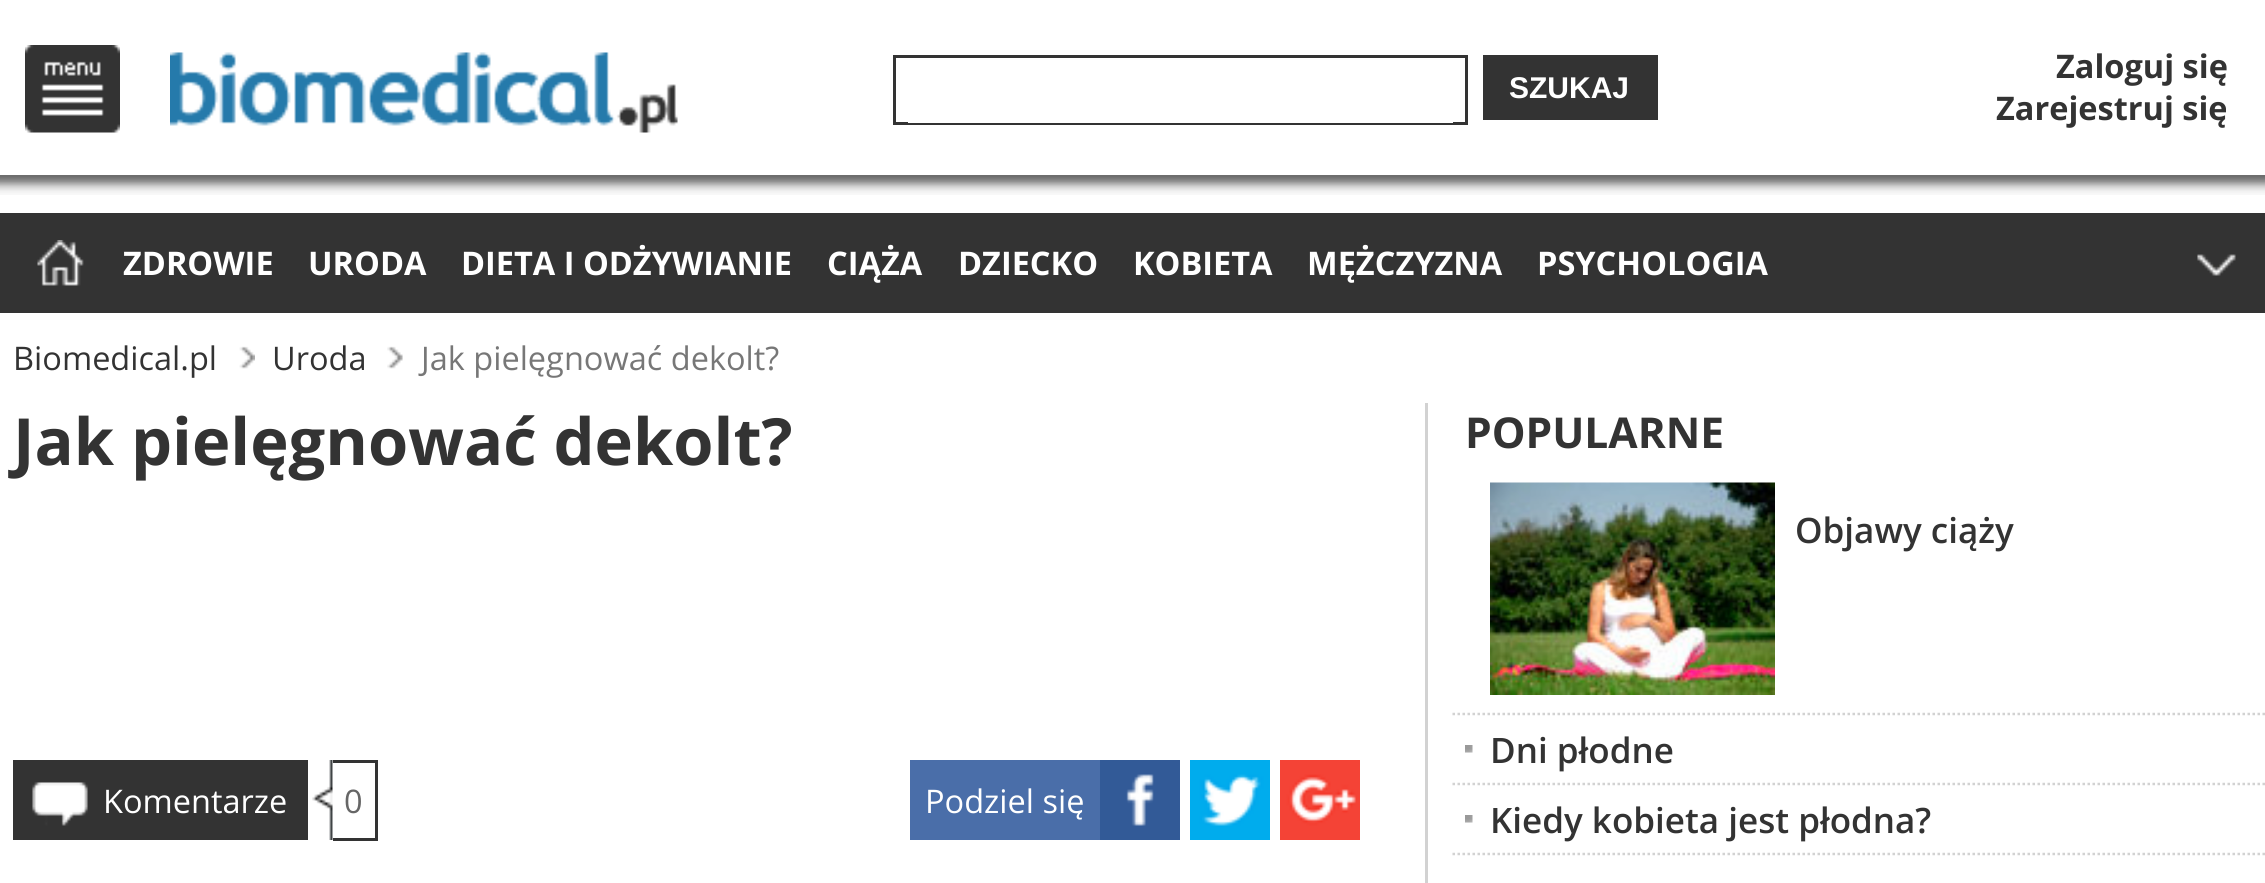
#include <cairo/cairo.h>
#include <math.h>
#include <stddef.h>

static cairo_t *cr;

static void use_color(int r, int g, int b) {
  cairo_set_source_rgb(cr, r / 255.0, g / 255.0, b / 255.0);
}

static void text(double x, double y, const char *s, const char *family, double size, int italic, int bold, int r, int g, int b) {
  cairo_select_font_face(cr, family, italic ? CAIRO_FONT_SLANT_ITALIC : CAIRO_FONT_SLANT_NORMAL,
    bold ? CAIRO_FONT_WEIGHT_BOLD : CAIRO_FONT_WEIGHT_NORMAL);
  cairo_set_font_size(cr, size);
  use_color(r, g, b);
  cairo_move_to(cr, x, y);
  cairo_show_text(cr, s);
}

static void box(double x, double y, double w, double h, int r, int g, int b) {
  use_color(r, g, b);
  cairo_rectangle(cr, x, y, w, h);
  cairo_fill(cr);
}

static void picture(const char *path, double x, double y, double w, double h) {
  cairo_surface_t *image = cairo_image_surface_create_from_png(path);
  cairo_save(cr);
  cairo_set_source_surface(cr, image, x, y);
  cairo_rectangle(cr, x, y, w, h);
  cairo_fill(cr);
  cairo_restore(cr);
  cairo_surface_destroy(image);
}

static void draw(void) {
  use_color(255, 255, 255);
  cairo_paint(cr);
  picture("img_01.png", 25, 45, 95, 88);
  picture("img_02.png", 170, 52, 508, 81);
  cairo_rectangle(cr, 894.5, 56.5, 572, 67);
  use_color(51, 51, 51);
  cairo_set_line_width(cr, 3);
  cairo_stroke(cr);
  box(908, 122, 545, 1, 255, 255, 255);
  box(1483, 55, 175, 65, 51, 51, 51);
  picture("img_03.png", 0, 175, 2265, 20);
  box(0, 213, 2265, 100, 51, 51, 51);
  picture("img_04.png", 37, 240, 47, 46);
  picture("img_05.png", 2197, 254, 39, 22);
  picture("img_06.png", 239, 346, 16, 23);
  picture("img_07.png", 387, 346, 16, 23);
  box(13, 760, 295, 80, 51, 51, 51);
  picture("img_08.png", 32, 782, 56, 44);
  picture("img_09.png", 312, 760, 21, 80);
  box(333, 760, 45, 3, 51, 51, 51);
  box(375, 760, 3, 80, 51, 51, 51);
  box(333, 838, 45, 3, 51, 51, 51);
  picture("img_10.png", 1100, 760, 80, 80);
  box(910, 760, 190, 80, 74, 110, 169);
  picture("img_11.png", 1190, 760, 80, 80);
  picture("img_12.png", 1280, 760, 80, 80);
  box(1425, 403, 3, 480, 210, 210, 210);
  cairo_new_path(cr);
  cairo_move_to(cr, 1452.5, 714);
  cairo_line_to(cr, 2265, 714);
  cairo_set_line_width(cr, 2.5);
  cairo_set_dash(cr, (double[]){2.5, 2.5}, 2, 0);
  cairo_stroke(cr);
  picture("img_13.png", 1490, 482, 285, 213);
  picture("img_14.png", 1465, 745, 8, 8);
  cairo_new_path(cr);
  cairo_move_to(cr, 1452.5, 784);
  cairo_line_to(cr, 2265, 784);
  cairo_stroke(cr);
  picture("img_14.png", 1465, 815, 8, 8);
  cairo_new_path(cr);
  cairo_move_to(cr, 1452.5, 854);
  cairo_line_to(cr, 2265, 854);
  cairo_stroke(cr);
  text(1509, 98, "SZUKAJ", "Liberation Sans", 30, 0, 1, 255, 255, 255);
  text(2056, 78, "Zaloguj się", "Open Sans", 32.5, 0, 1, 51, 51, 51);
  text(1996, 120, "Zarejestruj się", "Open Sans", 32.5, 0, 1, 51, 51, 51);
  text(123, 275, "ZDROWIE", "Open Sans", 32.5, 0, 1, 255, 255, 255);
  text(308, 275, "URODA", "Open Sans", 32.5, 0, 1, 255, 255, 255);
  text(461, 275, "DIETA I ODŻYWIANIE", "Open Sans", 32.5, 0, 1, 255, 255, 255);
  text(827, 275, "CIĄŻA", "Open Sans", 32.5, 0, 1, 255, 255, 255);
  text(958, 275, "DZIECKO", "Open Sans", 32.5, 0, 1, 255, 255, 255);
  text(1133, 275, "KOBIETA", "Open Sans", 32.5, 0, 1, 255, 255, 255);
  text(1307, 275, "MĘŻCZYZNA", "Open Sans", 32.5, 0, 1, 255, 255, 255);
  text(1537, 275, "PSYCHOLOGIA", "Open Sans", 32.5, 0, 1, 255, 255, 255);
  text(13, 370, "Biomedical.pl", "Open Sans", 32.5, 0, 0, 51, 51, 51);
  text(272, 370, "Uroda", "Open Sans", 32.5, 0, 0, 51, 51, 51);
  text(421, 370, "Jak pielęgnować dekolt?", "Open Sans", 32.5, 0, 0, 119, 119, 119);
  text(13, 465, "Jak pielęgnować dekolt?", "Open Sans", 65, 0, 1, 51, 51, 51);
  text(103, 813, "Komentarze", "Open Sans", 32.5, 0, 0, 255, 255, 255);
  text(344, 813, "0", "Open Sans", 32.5, 0, 0, 102, 102, 102);
  text(925, 813, "Podziel się", "Open Sans", 32.5, 0, 0, 255, 255, 255);
  text(1465, 448, "POPULARNE", "Open Sans", 42.5, 0, 1, 51, 51, 51);
  text(1795, 543, "Objawy ciąży", "Open Sans SemiBold", 35, 0, 0, 51, 51, 51);
  text(1490, 763, "Dni płodne", "Open Sans SemiBold", 35, 0, 0, 51, 51, 51);
  text(1490, 833, "Kiedy kobieta jest płodna?", "Open Sans SemiBold", 35, 0, 0, 51, 51, 51);
}

int main(void) {
  cairo_surface_t *surface = cairo_image_surface_create(CAIRO_FORMAT_RGB24, 2265, 883);
  cr = cairo_create(surface);
  cairo_font_options_t *options = cairo_font_options_create();
  cairo_font_options_set_hint_metrics(options, CAIRO_HINT_METRICS_OFF);
  cairo_font_options_set_hint_style(options, CAIRO_HINT_STYLE_NONE);
  cairo_set_font_options(cr, options);
  cairo_set_miter_limit(cr, 4);
  draw();
  cairo_surface_write_to_png(surface, "out.png");
  cairo_font_options_destroy(options);
  cairo_destroy(cr);
  cairo_surface_destroy(surface);
  return 0;
}
